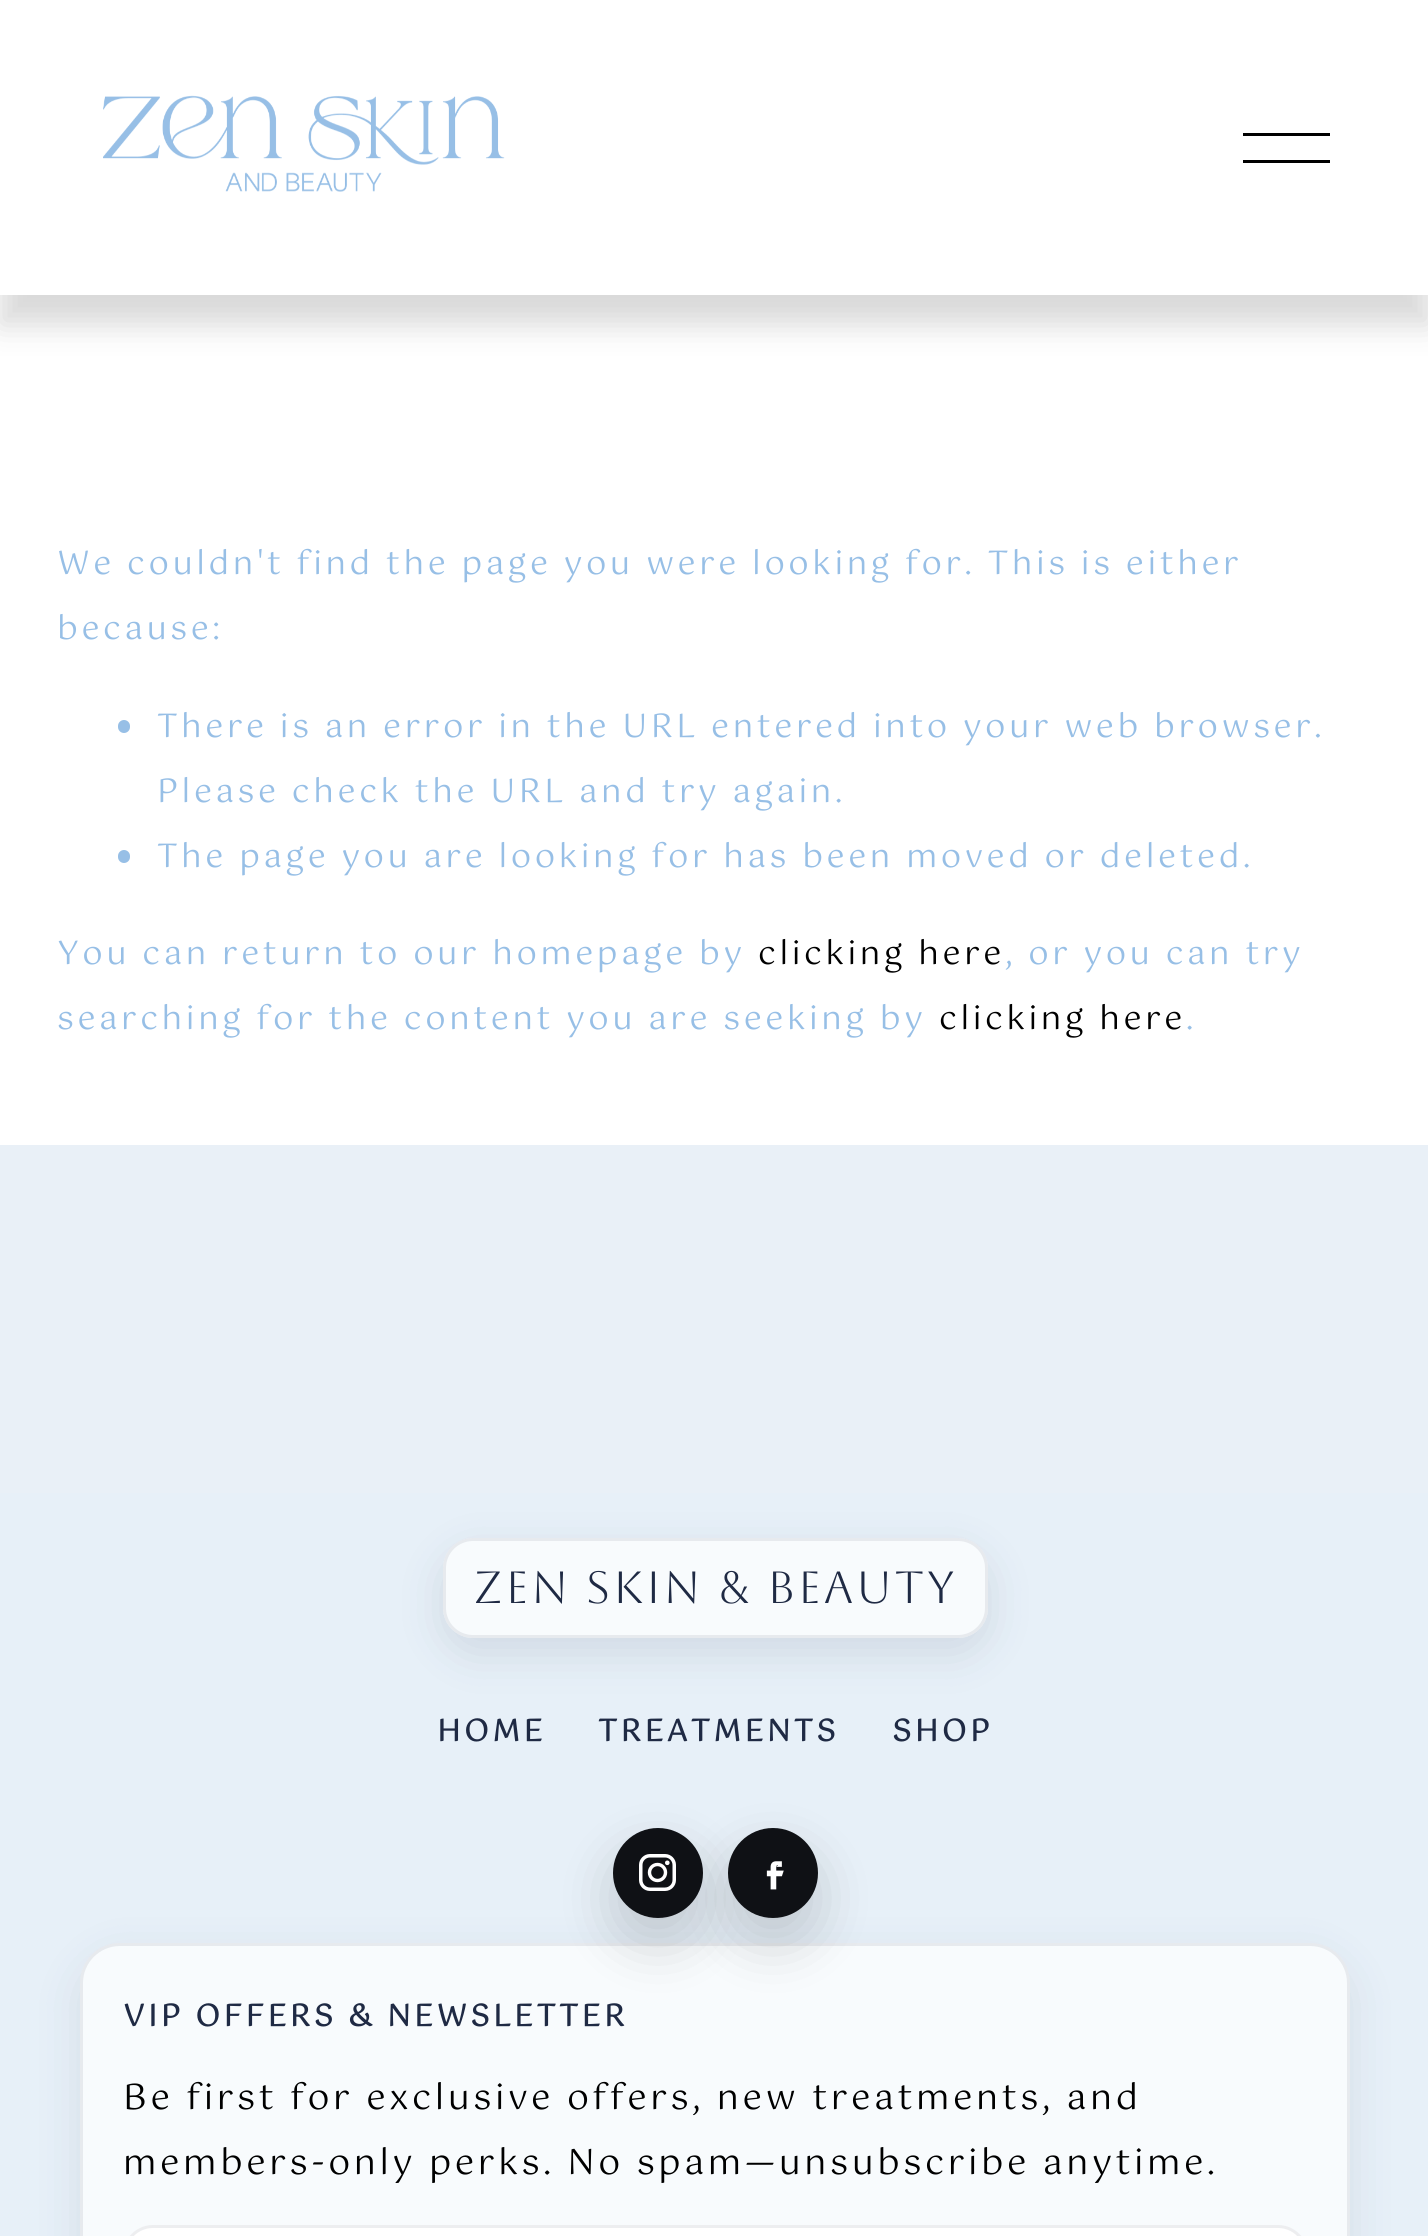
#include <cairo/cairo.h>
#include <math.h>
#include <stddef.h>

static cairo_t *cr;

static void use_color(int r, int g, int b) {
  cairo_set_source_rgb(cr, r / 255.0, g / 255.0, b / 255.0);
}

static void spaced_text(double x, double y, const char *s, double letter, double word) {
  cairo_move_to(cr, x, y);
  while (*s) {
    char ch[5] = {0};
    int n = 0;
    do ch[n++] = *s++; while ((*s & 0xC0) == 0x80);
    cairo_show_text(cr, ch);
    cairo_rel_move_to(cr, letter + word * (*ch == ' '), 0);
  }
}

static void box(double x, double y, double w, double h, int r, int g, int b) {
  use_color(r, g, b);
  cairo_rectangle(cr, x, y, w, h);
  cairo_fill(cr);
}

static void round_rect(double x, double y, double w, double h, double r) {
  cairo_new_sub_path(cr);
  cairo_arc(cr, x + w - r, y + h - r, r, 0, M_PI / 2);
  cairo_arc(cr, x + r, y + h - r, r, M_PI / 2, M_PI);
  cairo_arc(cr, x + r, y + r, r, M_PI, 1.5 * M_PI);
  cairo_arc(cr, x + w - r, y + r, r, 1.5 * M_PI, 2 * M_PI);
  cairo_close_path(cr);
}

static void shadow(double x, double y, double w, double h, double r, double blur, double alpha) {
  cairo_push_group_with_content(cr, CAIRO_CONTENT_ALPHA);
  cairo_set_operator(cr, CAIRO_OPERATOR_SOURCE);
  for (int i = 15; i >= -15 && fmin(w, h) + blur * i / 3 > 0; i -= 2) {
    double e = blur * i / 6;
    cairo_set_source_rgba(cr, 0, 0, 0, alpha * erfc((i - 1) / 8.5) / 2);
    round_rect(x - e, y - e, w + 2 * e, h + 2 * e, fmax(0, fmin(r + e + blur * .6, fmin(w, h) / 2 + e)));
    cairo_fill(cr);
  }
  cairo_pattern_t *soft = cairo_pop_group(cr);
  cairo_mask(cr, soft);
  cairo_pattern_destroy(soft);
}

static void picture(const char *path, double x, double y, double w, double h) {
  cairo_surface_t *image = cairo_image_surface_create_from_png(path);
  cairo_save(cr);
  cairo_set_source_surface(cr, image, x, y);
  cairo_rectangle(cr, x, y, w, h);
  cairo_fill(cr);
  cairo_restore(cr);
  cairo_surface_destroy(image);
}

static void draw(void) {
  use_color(255, 255, 255);
  cairo_paint(cr);
  cairo_save(cr);
  cairo_rectangle(cr, 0, 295, 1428, 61);
  cairo_clip(cr);
  use_color(217, 217, 217);
  shadow(0, 30, 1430, 295, 0, 15, 1);
  cairo_restore(cr);
  picture("img_01.png", 103, 95, 402, 97);
  box(1243, 133, 87, 3, 0, 0, 0);
  box(1243, 160, 87, 3, 0, 0, 0);
  use_color(151, 191, 230);
  round_rect(118, 720, 12, 13, 6);
  cairo_fill(cr);
  round_rect(118, 850, 12, 13, 6);
  cairo_fill(cr);
  box(0, 1145, 1428, 348, 233, 240, 247);
  box(0, 1493, 1428, 743, 231, 240, 248);
  cairo_save(cr);
  cairo_set_fill_rule(cr, CAIRO_FILL_RULE_EVEN_ODD);
  cairo_new_path(cr);
  cairo_move_to(cr, 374, 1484);
  cairo_line_to(cr, 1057, 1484);
  cairo_line_to(cr, 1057, 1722);
  cairo_line_to(cr, 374, 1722);
  cairo_close_path(cr);
  cairo_move_to(cr, 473, 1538);
  cairo_line_to(cr, 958, 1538);
  cairo_curve_to(cr, 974.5, 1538, 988, 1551.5, 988, 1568);
  cairo_line_to(cr, 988, 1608);
  cairo_curve_to(cr, 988, 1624.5, 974.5, 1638, 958, 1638);
  cairo_line_to(cr, 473, 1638);
  cairo_curve_to(cr, 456.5, 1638, 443, 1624.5, 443, 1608);
  cairo_line_to(cr, 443, 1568);
  cairo_curve_to(cr, 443, 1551.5, 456.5, 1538, 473, 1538);
  cairo_close_path(cr);
  cairo_clip(cr);
  use_color(31, 42, 68);
  shadow(443, 1553, 545, 100, 30, 22.5, 0.12);
  cairo_restore(cr);
  cairo_set_source_rgba(cr, 1, 1, 1, 0.7);
  round_rect(443, 1538, 545, 100, 30);
  cairo_fill(cr);
  round_rect(444.5, 1539.5, 542, 97, 28.5);
  cairo_set_source_rgba(cr, 0.122, 0.165, 0.267, 0.08);
  cairo_set_line_width(cr, 3);
  cairo_stroke(cr);
  use_color(31, 42, 68);
  shadow(80, 1958, 1270, 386, 40, 22.5, 0.1);
  use_color(248, 251, 253);
  round_rect(80, 1943, 1270, 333, 40);
  cairo_fill(cr);
  round_rect(81.5, 1944.5, 1267, 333, 38.5);
  cairo_set_source_rgba(cr, 0.122, 0.165, 0.267, 0.08);
  cairo_stroke(cr);
  use_color(0, 0, 0);
  shadow(613, 1853, 90, 90, 45, 27.5, 0.16);
  use_color(15, 17, 21);
  cairo_arc(cr, 658, 1873, 45, 0, 2 * M_PI);
  cairo_fill(cr);
  use_color(0, 0, 0);
  shadow(728, 1853, 90, 90, 45, 27.5, 0.16);
  round_rect(640.75, 1855.75, 33.5, 33.5, 9.25);
  use_color(255, 255, 255);
  cairo_set_line_width(cr, 3.5);
  cairo_stroke(cr);
  cairo_arc(cr, 657.5, 1872.5, 8, 0, 2 * M_PI);
  cairo_set_line_width(cr, 3.4);
  cairo_stroke(cr);
  cairo_arc(cr, 667.3, 1862.8, 2.3, 0, 2 * M_PI);
  cairo_fill(cr);
  use_color(15, 17, 21);
  cairo_arc(cr, 773, 1873, 45, 0, 2 * M_PI);
  cairo_fill(cr);
  picture("img_02.png", 766, 1861, 18, 29);
  use_color(255, 255, 255);
  round_rect(123, 2225, 1185, 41, 30);
  cairo_fill(cr);
  round_rect(124.5, 2226.5, 1182, 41, 28.5);
  cairo_set_source_rgba(cr, 0.122, 0.165, 0.267, 0.08);
  cairo_set_line_width(cr, 3);
  cairo_stroke(cr);
  cairo_select_font_face(cr, "Gotu", CAIRO_FONT_SLANT_NORMAL, CAIRO_FONT_WEIGHT_NORMAL);
  cairo_set_font_size(cr, 32.5);
  use_color(151, 191, 230);
  spaced_text(57, 574, "We couldn't find the page you were looking for. This is either", 3.57, 0);
  spaced_text(57, 639, "because:", 3.57, 0);
  spaced_text(157, 737, "There is an error in the URL entered into your web browser.", 3.57, 0);
  spaced_text(157, 802, "Please check the URL and try again.", 3.57, 0);
  spaced_text(157, 867, "The page you are looking for has been moved or deleted.", 3.57, 0);
  spaced_text(57, 964, "You can return to our homepage by", 3.57, 0);
  use_color(0, 0, 0);
  spaced_text(758, 964, "clicking here", 3.57, 0);
  use_color(151, 191, 230);
  spaced_text(1005, 964, ", or you can try", 3.57, 0);
  spaced_text(57, 1029, "searching for the content you are seeking by", 3.57, 0);
  use_color(0, 0, 0);
  spaced_text(939, 1029, "clicking here", 3.57, 0);
  use_color(151, 191, 230);
  spaced_text(1186, 1029, ".", 3.57, 0);
  cairo_select_font_face(cr, "Aboreto", CAIRO_FONT_SLANT_NORMAL, CAIRO_FONT_WEIGHT_NORMAL);
  cairo_set_font_size(cr, 45);
  use_color(31, 42, 68);
  spaced_text(474, 1603, "ZEN SKIN & BEAUTY", 2.75, 0);
  cairo_select_font_face(cr, "Gotu", CAIRO_FONT_SLANT_NORMAL, CAIRO_FONT_WEIGHT_BOLD);
  cairo_set_font_size(cr, 30);
  spaced_text(437, 1741, "HOME", 3.6, 0);
  spaced_text(598, 1741, "TREATMENTS", 3.6, 0);
  spaced_text(892, 1741, "SHOP", 3.6, 0);
  spaced_text(123, 2026, "VIP OFFERS & NEWSLETTER", 3.6, 0);
  cairo_select_font_face(cr, "Gotu", CAIRO_FONT_SLANT_NORMAL, CAIRO_FONT_WEIGHT_NORMAL);
  cairo_set_font_size(cr, 35);
  use_color(0, 0, 0);
  spaced_text(123, 2109, "Be first for exclusive offers, new treatments, and", 3.57, 0);
  spaced_text(123, 2174, "members-only perks. No spam—unsubscribe anytime.", 3.57, 0);
}

int main(void) {
  cairo_surface_t *surface = cairo_image_surface_create(CAIRO_FORMAT_RGB24, 1428, 2236);
  cr = cairo_create(surface);
  cairo_font_options_t *options = cairo_font_options_create();
  cairo_font_options_set_hint_metrics(options, CAIRO_HINT_METRICS_OFF);
  cairo_font_options_set_hint_style(options, CAIRO_HINT_STYLE_NONE);
  cairo_set_font_options(cr, options);
  cairo_set_miter_limit(cr, 4);
  draw();
  cairo_surface_write_to_png(surface, "out.png");
  cairo_font_options_destroy(options);
  cairo_destroy(cr);
  cairo_surface_destroy(surface);
  return 0;
}
